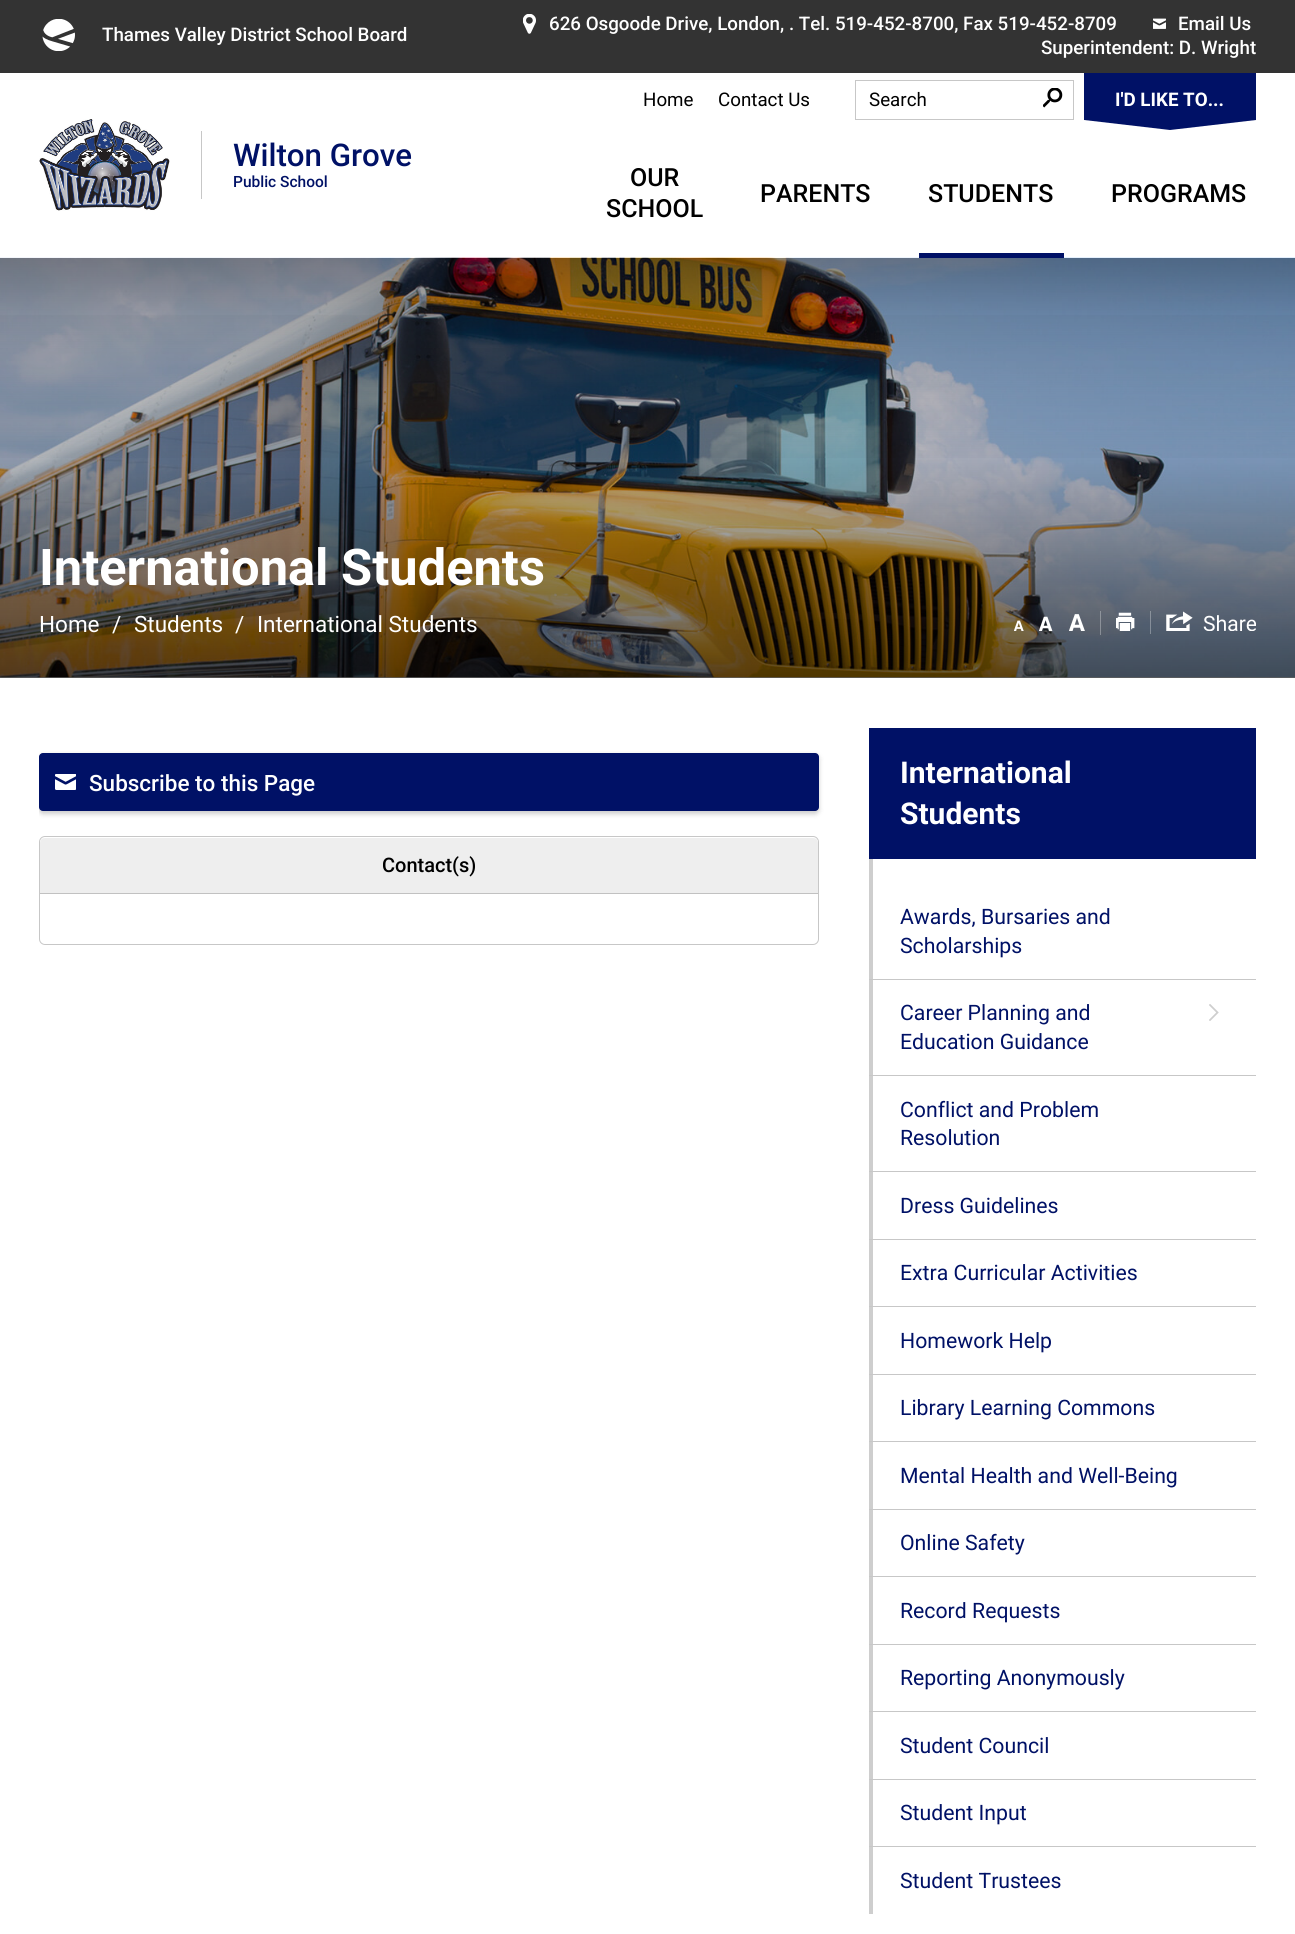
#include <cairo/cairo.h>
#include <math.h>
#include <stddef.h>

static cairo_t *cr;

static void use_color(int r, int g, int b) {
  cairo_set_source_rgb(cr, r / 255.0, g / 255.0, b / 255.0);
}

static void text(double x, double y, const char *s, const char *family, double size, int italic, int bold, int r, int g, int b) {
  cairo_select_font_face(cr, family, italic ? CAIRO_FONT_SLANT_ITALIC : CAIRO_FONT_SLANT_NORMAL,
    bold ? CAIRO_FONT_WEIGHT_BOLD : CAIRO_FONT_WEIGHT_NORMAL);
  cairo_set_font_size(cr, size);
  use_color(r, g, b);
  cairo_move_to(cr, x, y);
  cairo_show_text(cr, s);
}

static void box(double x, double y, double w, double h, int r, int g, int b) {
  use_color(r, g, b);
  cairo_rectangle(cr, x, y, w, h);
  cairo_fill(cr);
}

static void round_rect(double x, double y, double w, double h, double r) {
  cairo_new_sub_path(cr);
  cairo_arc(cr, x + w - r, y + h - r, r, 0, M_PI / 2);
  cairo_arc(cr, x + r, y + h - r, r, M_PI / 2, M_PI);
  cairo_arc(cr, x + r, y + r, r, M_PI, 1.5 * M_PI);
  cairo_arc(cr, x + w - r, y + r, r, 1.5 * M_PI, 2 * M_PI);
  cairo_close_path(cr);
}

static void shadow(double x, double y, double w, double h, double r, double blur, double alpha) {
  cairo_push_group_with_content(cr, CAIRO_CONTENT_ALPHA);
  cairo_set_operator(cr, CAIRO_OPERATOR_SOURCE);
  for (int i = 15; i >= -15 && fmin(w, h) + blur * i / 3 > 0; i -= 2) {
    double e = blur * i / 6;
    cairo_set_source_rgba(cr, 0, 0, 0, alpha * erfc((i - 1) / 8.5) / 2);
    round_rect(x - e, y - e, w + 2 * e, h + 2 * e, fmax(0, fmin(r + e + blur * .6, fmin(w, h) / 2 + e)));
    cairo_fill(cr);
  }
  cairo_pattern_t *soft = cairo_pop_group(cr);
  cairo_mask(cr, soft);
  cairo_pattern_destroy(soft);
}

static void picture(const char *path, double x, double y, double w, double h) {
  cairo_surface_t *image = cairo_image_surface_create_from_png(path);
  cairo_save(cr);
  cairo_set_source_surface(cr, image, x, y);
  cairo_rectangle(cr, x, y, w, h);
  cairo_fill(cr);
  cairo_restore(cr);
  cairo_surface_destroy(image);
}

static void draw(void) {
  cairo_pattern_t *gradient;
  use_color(255, 255, 255);
  cairo_paint(cr);
  box(0, 0, 1295, 73, 51, 51, 51);
  picture("img_01.png", 42, 19, 33, 32);
  picture("img_02.png", 523, 14, 13, 20);
  picture("img_03.png", 1153, 18, 13, 11);
  picture("img_04.png", 39, 119, 131, 92);
  box(201, 131, 1, 68, 199, 199, 199);
  cairo_rectangle(cr, 855.5, 80.5, 218, 39);
  cairo_set_line_width(cr, 1);
  cairo_stroke(cr);
  picture("img_05.png", 1043, 88, 20, 20);
  box(1084, 73, 172, 47, 0, 17, 102);
  cairo_new_path(cr);
  cairo_move_to(cr, 1084, 120);
  cairo_line_to(cr, 1256, 120);
  cairo_line_to(cr, 1170, 130);
  cairo_close_path(cr);
  cairo_fill(cr);
  picture("img_06.png", 0, 257, 1295, 421);
  box(919, 253, 145, 5, 0, 17, 102);
  gradient = cairo_pattern_create_linear(648, 302, 648, 678);
  cairo_pattern_add_color_stop_rgba(gradient, 0, 0, 0, 0, 0);
  cairo_pattern_add_color_stop_rgba(gradient, 1, 0, 0, 0, 0.62);
  cairo_set_source(cr, gradient);
  cairo_pattern_destroy(gradient);
  cairo_rectangle(cr, 0, 315, 1295, 363);
  cairo_fill(cr);
  gradient = cairo_pattern_create_linear(648, 468, 648, 258);
  cairo_pattern_add_color_stop_rgba(gradient, 0, 0, 0, 0, 0);
  cairo_pattern_add_color_stop_rgba(gradient, 1, 0, 0, 0, 0.46);
  cairo_set_source(cr, gradient);
  cairo_pattern_destroy(gradient);
  cairo_rectangle(cr, 0, 258, 1295, 200);
  cairo_fill(cr);
  picture("img_07.png", 1014, 620, 10, 11);
  picture("img_08.png", 1039, 616, 14, 15);
  picture("img_09.png", 1069, 614, 16, 17);
  cairo_set_source_rgba(cr, 1, 1, 1, 0.3);
  cairo_rectangle(cr, 1100, 611, 1, 24);
  cairo_fill(cr);
  picture("img_10.png", 1116, 612, 19, 19);
  cairo_rectangle(cr, 1150, 611, 1, 23);
  cairo_fill(cr);
  picture("img_11.png", 1166, 611, 90, 20);
  cairo_save(cr);
  cairo_rectangle(cr, 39, 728, 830, 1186);
  cairo_clip(cr);
  use_color(0, 0, 0);
  shadow(39, 755, 780, 59, 4, 2.5, 0.2);
  cairo_restore(cr);
  use_color(0, 17, 102);
  round_rect(39, 753, 780, 58, 4);
  cairo_fill(cr);
  picture("img_12.png", 55, 774, 21, 16);
  round_rect(39.5, 836.5, 779, 108, 5.5);
  use_color(199, 199, 199);
  cairo_stroke(cr);
  use_color(238, 238, 238);
  cairo_new_path(cr);
  cairo_move_to(cr, 45, 838);
  cairo_line_to(cr, 813, 838);
  cairo_curve_to(cr, 816, 838, 818, 840, 818, 843);
  cairo_line_to(cr, 818, 894);
  cairo_line_to(cr, 40, 894);
  cairo_line_to(cr, 40, 843);
  cairo_curve_to(cr, 40, 840, 42, 838, 45, 838);
  cairo_close_path(cr);
  cairo_fill(cr);
  box(40, 893, 778, 1, 193, 193, 193);
  box(869, 859, 4, 1055, 206, 206, 206);
  box(869, 728, 387, 131, 0, 17, 102);
  box(869, 979, 387, 1, 199, 199, 199);
  picture("img_13.png", 1209, 1004, 10, 17);
  box(869, 1075, 387, 1, 199, 199, 199);
  box(869, 1171, 387, 1, 199, 199, 199);
  box(869, 1239, 387, 1, 199, 199, 199);
  box(869, 1306, 387, 1, 199, 199, 199);
  box(869, 1374, 387, 1, 199, 199, 199);
  box(869, 1441, 387, 1, 199, 199, 199);
  box(869, 1509, 387, 1, 199, 199, 199);
  box(869, 1576, 387, 1, 199, 199, 199);
  box(869, 1644, 387, 1, 199, 199, 199);
  box(869, 1711, 387, 1, 199, 199, 199);
  box(869, 1779, 387, 1, 199, 199, 199);
  box(869, 1846, 387, 1, 199, 199, 199);
  text(102, 41, "Thames Valley District School Board", "Roboto Medium", 18.75, 0, 0, 255, 255, 255);
  text(549, 30, "626 Osgoode Drive, London, . Tel. 519-452-8700, Fax 519-452-8709", "Roboto Medium", 18.75, 0, 0, 255, 255, 255);
  text(1178, 30, "Email Us", "Roboto Medium", 18.75, 0, 0, 255, 255, 255);
  text(1041, 54, "Superintendent: D. Wright", "Roboto Medium", 18.75, 0, 0, 255, 255, 255);
  text(233, 166, "Wilton Grove", "Roboto Medium", 31.25, 0, 0, 0, 17, 102);
  text(233, 187, "Public School", "Roboto Medium", 15.5, 0, 0, 0, 17, 102);
  text(643, 106, "Home", "Roboto", 18.75, 0, 0, 0, 0, 0);
  text(718, 106, "Contact Us", "Roboto", 18.75, 0, 0, 0, 0, 0);
  text(869, 106, "Search", "Roboto", 18.75, 0, 0, 0, 0, 0);
  text(1115, 106, "I'D LIKE TO...", "Roboto", 18.75, 0, 1, 255, 255, 255);
  text(630, 186, "OUR", "Roboto Medium", 25, 0, 0, 0, 0, 0);
  text(606, 217, "SCHOOL", "Roboto Medium", 25, 0, 0, 0, 0, 0);
  text(760, 202, "PARENTS", "Roboto Medium", 25, 0, 0, 0, 0, 0);
  text(928, 202, "STUDENTS", "Roboto Medium", 25, 0, 0, 0, 0, 0);
  text(1111, 202, "PROGRAMS", "Roboto Medium", 25, 0, 0, 0, 0, 0);
  text(39, 585, "International Students", "Roboto", 50.6, 0, 1, 255, 255, 255);
  text(39, 632, "Home", "Roboto", 22.5, 0, 0, 255, 255, 255);
  text(112, 632, "/", "Roboto", 22.5, 0, 0, 255, 255, 255);
  text(134, 632, "Students", "Roboto", 22.5, 0, 0, 255, 255, 255);
  text(235, 632, "/", "Roboto", 22.5, 0, 0, 255, 255, 255);
  text(257, 632, "International Students", "Roboto", 22.5, 0, 0, 255, 255, 255);
  text(89, 791, "Subscribe to this Page", "Roboto Medium", 22.5, 0, 0, 255, 255, 255);
  text(382, 872, "Contact(s)", "Roboto Medium", 20, 0, 0, 0, 0, 0);
  text(900, 783, "International", "Roboto", 30, 0, 1, 255, 255, 255);
  text(900, 824, "Students", "Roboto", 30, 0, 1, 255, 255, 255);
  text(900, 924, "Awards, Bursaries and", "Roboto", 21.25, 0, 0, 0, 17, 102);
  text(900, 953, "Scholarships", "Roboto", 21.25, 0, 0, 0, 17, 102);
  text(900, 1020, "Career Planning and", "Roboto", 21.25, 0, 0, 0, 17, 102);
  text(900, 1049, "Education Guidance", "Roboto", 21.25, 0, 0, 0, 17, 102);
  text(900, 1117, "Conflict and Problem", "Roboto", 21.25, 0, 0, 0, 17, 102);
  text(900, 1145, "Resolution", "Roboto", 21.25, 0, 0, 0, 17, 102);
  text(900, 1213, "Dress Guidelines", "Roboto", 21.25, 0, 0, 0, 17, 102);
  text(900, 1280, "Extra Curricular Activities", "Roboto", 21.25, 0, 0, 0, 17, 102);
  text(900, 1348, "Homework Help", "Roboto", 21.25, 0, 0, 0, 17, 102);
  text(900, 1415, "Library Learning Commons", "Roboto", 21.25, 0, 0, 0, 17, 102);
  text(900, 1483, "Mental Health and Well-Being", "Roboto", 21.25, 0, 0, 0, 17, 102);
  text(900, 1550, "Online Safety", "Roboto", 21.25, 0, 0, 0, 17, 102);
  text(900, 1618, "Record Requests", "Roboto", 21.25, 0, 0, 0, 17, 102);
  text(900, 1685, "Reporting Anonymously", "Roboto", 21.25, 0, 0, 0, 17, 102);
  text(900, 1753, "Student Council", "Roboto", 21.25, 0, 0, 0, 17, 102);
  text(900, 1820, "Student Input", "Roboto", 21.25, 0, 0, 0, 17, 102);
  text(900, 1888, "Student Trustees", "Roboto", 21.25, 0, 0, 0, 17, 102);
}

int main(void) {
  cairo_surface_t *surface = cairo_image_surface_create(CAIRO_FORMAT_RGB24, 1295, 1934);
  cr = cairo_create(surface);
  cairo_font_options_t *options = cairo_font_options_create();
  cairo_font_options_set_hint_metrics(options, CAIRO_HINT_METRICS_OFF);
  cairo_font_options_set_hint_style(options, CAIRO_HINT_STYLE_NONE);
  cairo_set_font_options(cr, options);
  cairo_set_miter_limit(cr, 4);
  draw();
  cairo_surface_write_to_png(surface, "out.png");
  cairo_font_options_destroy(options);
  cairo_destroy(cr);
  cairo_surface_destroy(surface);
  return 0;
}
